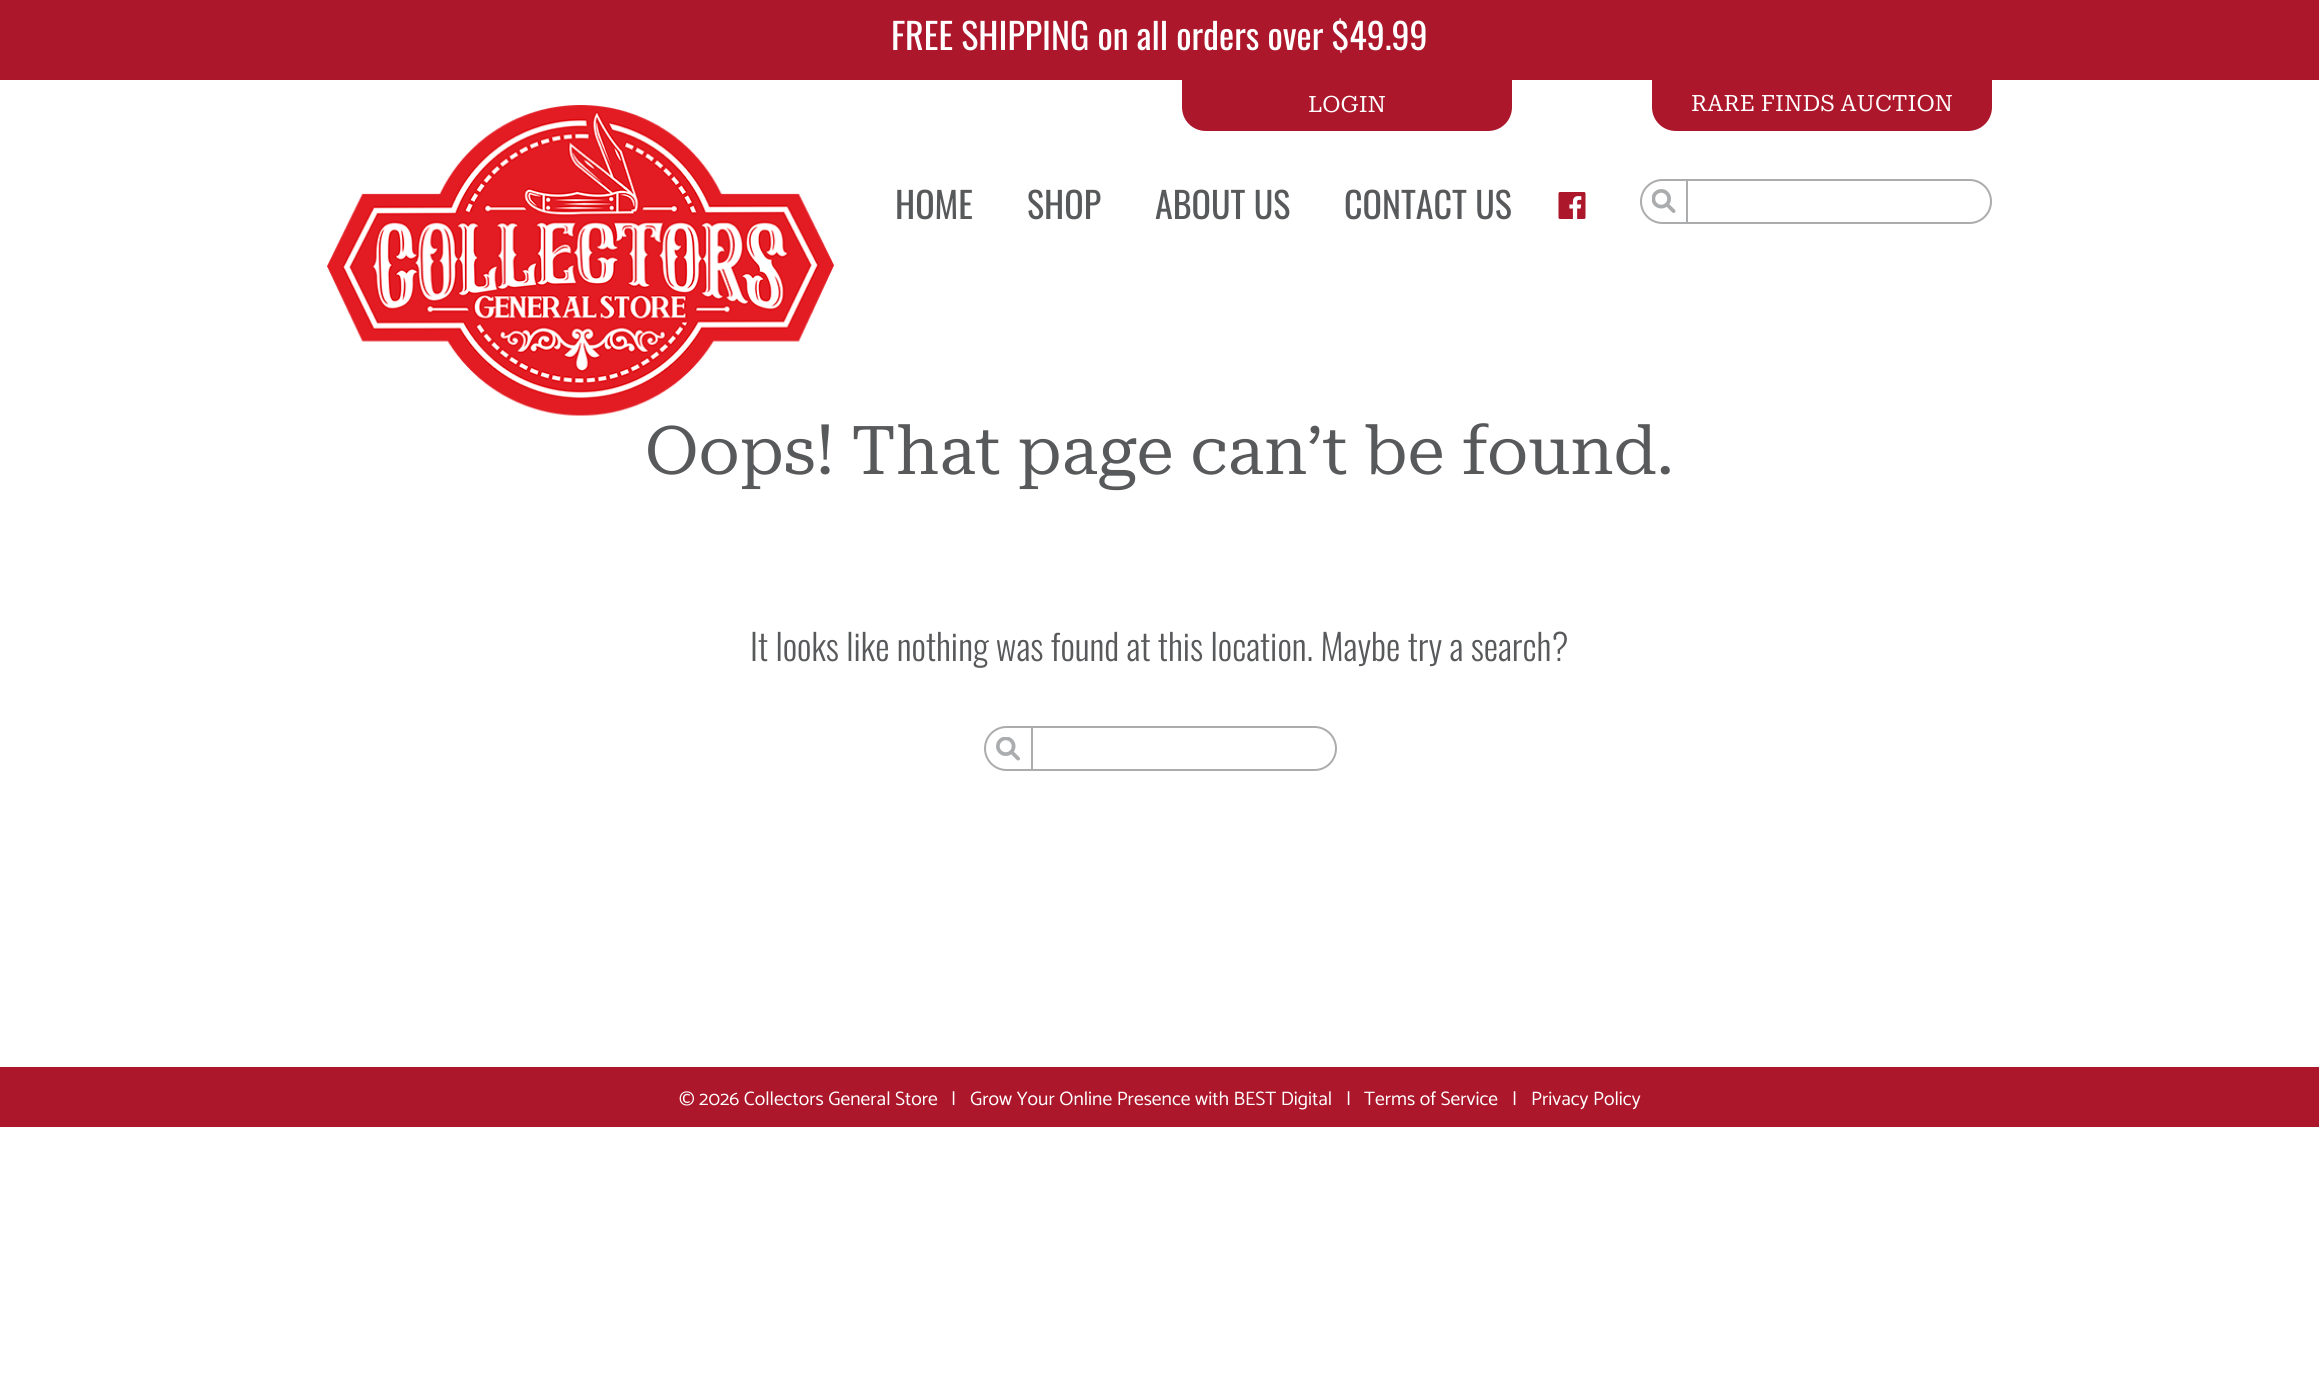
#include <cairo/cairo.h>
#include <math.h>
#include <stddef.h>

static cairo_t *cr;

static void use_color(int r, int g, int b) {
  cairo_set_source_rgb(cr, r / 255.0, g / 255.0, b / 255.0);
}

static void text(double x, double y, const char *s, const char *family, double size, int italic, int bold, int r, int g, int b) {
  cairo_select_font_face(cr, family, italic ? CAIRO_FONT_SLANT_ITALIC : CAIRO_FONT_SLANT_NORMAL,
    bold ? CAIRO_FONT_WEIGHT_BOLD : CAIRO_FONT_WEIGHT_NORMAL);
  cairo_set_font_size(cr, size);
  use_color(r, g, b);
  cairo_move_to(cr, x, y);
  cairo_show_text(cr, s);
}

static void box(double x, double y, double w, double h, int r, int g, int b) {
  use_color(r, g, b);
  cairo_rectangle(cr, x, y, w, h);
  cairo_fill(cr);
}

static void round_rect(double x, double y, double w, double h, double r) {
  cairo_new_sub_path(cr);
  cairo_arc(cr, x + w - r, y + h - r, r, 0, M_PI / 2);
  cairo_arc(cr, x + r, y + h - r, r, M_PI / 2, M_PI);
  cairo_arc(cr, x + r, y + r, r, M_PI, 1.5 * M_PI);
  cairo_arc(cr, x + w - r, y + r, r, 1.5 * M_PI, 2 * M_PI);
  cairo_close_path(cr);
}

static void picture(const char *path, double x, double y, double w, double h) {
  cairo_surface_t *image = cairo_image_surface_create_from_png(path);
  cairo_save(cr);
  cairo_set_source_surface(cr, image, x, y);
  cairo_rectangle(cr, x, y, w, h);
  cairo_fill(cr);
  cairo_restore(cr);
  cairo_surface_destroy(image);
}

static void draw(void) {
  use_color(255, 255, 255);
  cairo_paint(cr);
  box(0, 0, 2319, 80, 172, 23, 43);
  picture("img_01.png", 327, 105, 507, 311);
  cairo_new_path(cr);
  cairo_move_to(cr, 1182, 80);
  cairo_line_to(cr, 1512, 80);
  cairo_line_to(cr, 1512, 107);
  cairo_curve_to(cr, 1512, 120.5, 1501.5, 131, 1488, 131);
  cairo_line_to(cr, 1206, 131);
  cairo_curve_to(cr, 1192.5, 131, 1182, 120.5, 1182, 107);
  cairo_close_path(cr);
  cairo_fill(cr);
  picture("img_02.png", 1558, 192, 28, 27);
  cairo_new_path(cr);
  cairo_move_to(cr, 1652, 78);
  cairo_line_to(cr, 1992, 78);
  cairo_line_to(cr, 1992, 107);
  cairo_curve_to(cr, 1992, 120.5, 1981.5, 131, 1968, 131);
  cairo_line_to(cr, 1676, 131);
  cairo_curve_to(cr, 1662.5, 131, 1652, 120.5, 1652, 107);
  cairo_close_path(cr);
  cairo_fill(cr);
  round_rect(1641, 180, 350, 43, 21.5);
  use_color(171, 172, 173);
  cairo_stroke(cr);
  picture("img_03.png", 1652, 189, 24, 24);
  box(1686, 179, 2, 45, 171, 172, 173);
  round_rect(985, 727, 351, 43, 21.5);
  cairo_stroke(cr);
  picture("img_04.png", 996, 737, 24, 24);
  box(1031, 726, 2, 45, 171, 172, 173);
  box(0, 1067, 2319, 60, 172, 23, 43);
  text(891, 50, "FREE SHIPPING on all orders over $49.99", "Oswald", 36, 0, 0, 255, 255, 255);
  text(1308, 112, "LOGIN", "Roboto Serif", 22.5, 0, 0, 255, 255, 255);
  text(895, 219, "HOME", "Oswald", 36, 0, 0, 88, 89, 91);
  text(1027, 219, "SHOP", "Oswald", 36, 0, 0, 88, 89, 91);
  text(1155, 219, "ABOUT US", "Oswald", 36, 0, 0, 88, 89, 91);
  text(1344, 219, "CONTACT US", "Oswald", 36, 0, 0, 88, 89, 91);
  text(1691, 111, "RARE FINDS AUCTION", "Roboto Serif", 22.5, 0, 0, 255, 255, 255);
  text(645, 474, "Oops! That page can’t be found.", "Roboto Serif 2", 67.5, 0, 0, 88, 89, 91);
  text(750, 661, "It looks like nothing was found at this location. Maybe try a search?", "Oswald Light", 36, 0, 0, 88, 89, 91);
  text(679, 1105, "© 2026 Collectors General Store", "Catamaran Thin", 19.5, 0, 0, 255, 255, 255);
  text(951, 1105, "|", "Catamaran Thin", 19.5, 0, 0, 255, 255, 255);
  text(970, 1105, "Grow Your Online Presence with BEST Digital", "Catamaran Thin", 19.5, 0, 0, 255, 255, 255);
  text(1346, 1105, "|", "Catamaran Thin", 19.5, 0, 0, 255, 255, 255);
  text(1364, 1105, "Terms of Service", "Catamaran Thin", 19.5, 0, 0, 255, 255, 255);
  text(1512, 1105, "|", "Catamaran Thin", 19.5, 0, 0, 255, 255, 255);
  text(1531, 1105, "Privacy Policy", "Catamaran Thin", 19.5, 0, 0, 255, 255, 255);
}

int main(void) {
  cairo_surface_t *surface = cairo_image_surface_create(CAIRO_FORMAT_RGB24, 2319, 1377);
  cr = cairo_create(surface);
  cairo_font_options_t *options = cairo_font_options_create();
  cairo_font_options_set_hint_metrics(options, CAIRO_HINT_METRICS_OFF);
  cairo_font_options_set_hint_style(options, CAIRO_HINT_STYLE_NONE);
  cairo_set_font_options(cr, options);
  cairo_set_miter_limit(cr, 4);
  draw();
  cairo_surface_write_to_png(surface, "out.png");
  cairo_font_options_destroy(options);
  cairo_destroy(cr);
  cairo_surface_destroy(surface);
  return 0;
}
